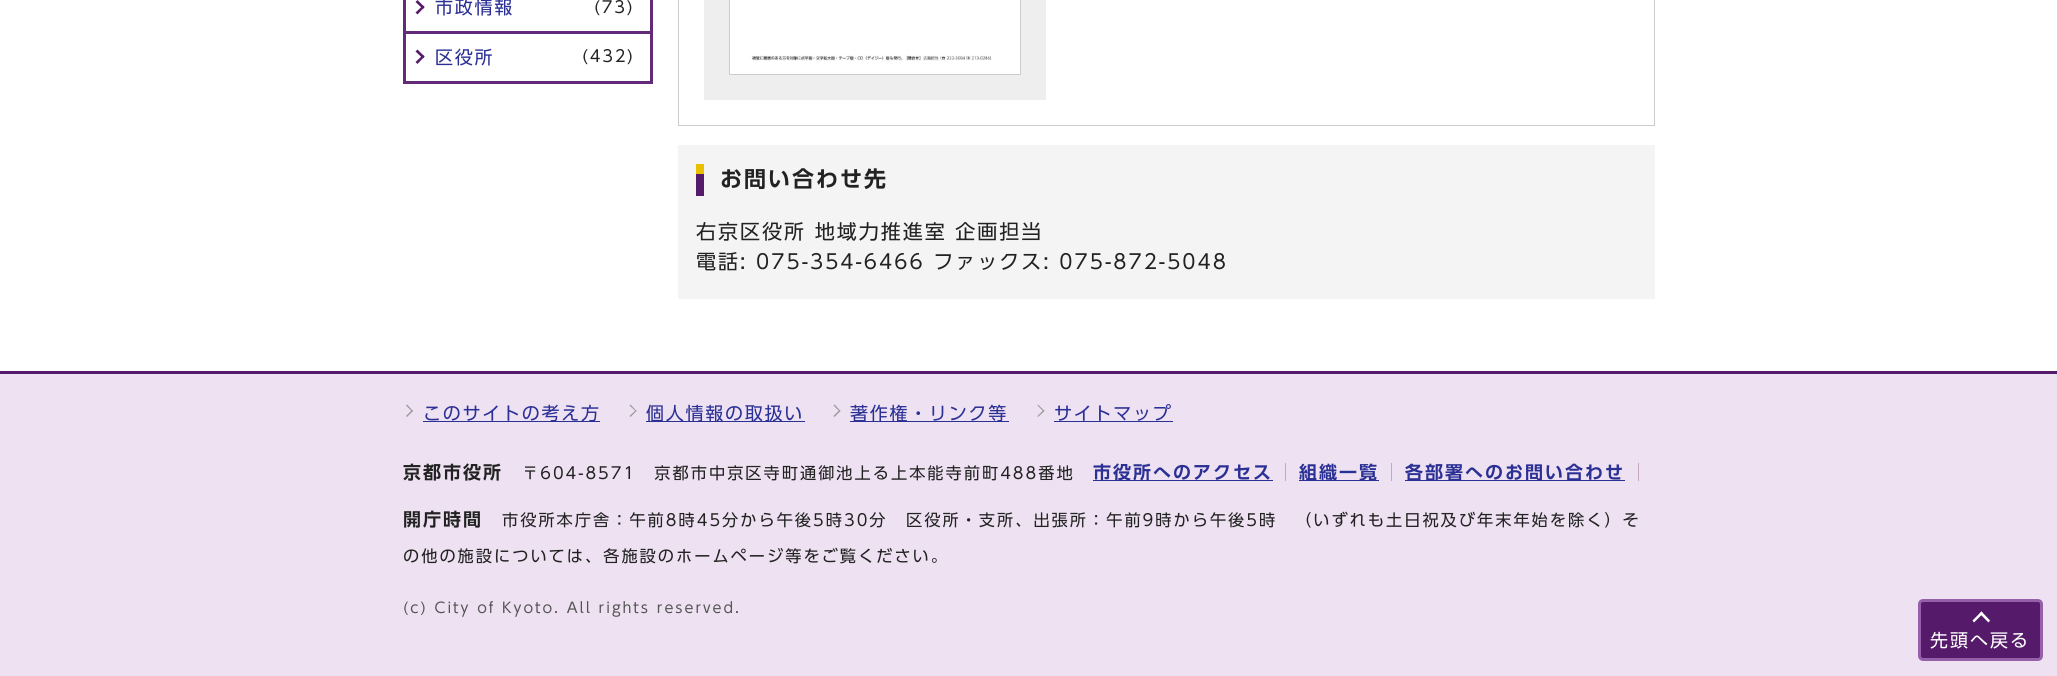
#include <cairo/cairo.h>
#include <math.h>
#include <stddef.h>

static cairo_t *cr;

static void use_color(int r, int g, int b) {
  cairo_set_source_rgb(cr, r / 255.0, g / 255.0, b / 255.0);
}

static void spaced_text(double x, double y, const char *s, double letter, double word) {
  cairo_move_to(cr, x, y);
  while (*s) {
    char ch[5] = {0};
    int n = 0;
    do ch[n++] = *s++; while ((*s & 0xC0) == 0x80);
    cairo_show_text(cr, ch);
    cairo_rel_move_to(cr, letter + word * (*ch == ' '), 0);
  }
}

static void box(double x, double y, double w, double h, int r, int g, int b) {
  use_color(r, g, b);
  cairo_rectangle(cr, x, y, w, h);
  cairo_fill(cr);
}

static void round_rect(double x, double y, double w, double h, double r) {
  cairo_new_sub_path(cr);
  cairo_arc(cr, x + w - r, y + h - r, r, 0, M_PI / 2);
  cairo_arc(cr, x + r, y + h - r, r, M_PI / 2, M_PI);
  cairo_arc(cr, x + r, y + r, r, M_PI, 1.5 * M_PI);
  cairo_arc(cr, x + w - r, y + r, r, 1.5 * M_PI, 2 * M_PI);
  cairo_close_path(cr);
}

static void picture(const char *path, double x, double y, double w, double h) {
  cairo_surface_t *image = cairo_image_surface_create_from_png(path);
  cairo_save(cr);
  cairo_set_source_surface(cr, image, x, y);
  cairo_rectangle(cr, x, y, w, h);
  cairo_fill(cr);
  cairo_restore(cr);
  cairo_surface_destroy(image);
}

static void draw(void) {
  use_color(255, 255, 255);
  cairo_paint(cr);
  box(650, 0, 3, 84, 98, 42, 120);
  box(403, 0, 3, 84, 98, 42, 120);
  box(405, 31, 245, 3, 98, 42, 120);
  use_color(85, 26, 106);
  cairo_new_path(cr);
  cairo_move_to(cr, 415.5, 2);
  cairo_line_to(cr, 417.5, 0);
  cairo_line_to(cr, 424.5, 7);
  cairo_line_to(cr, 423, 9);
  cairo_close_path(cr);
  cairo_fill(cr);
  cairo_new_path(cr);
  cairo_move_to(cr, 415.5, 12.5);
  cairo_line_to(cr, 423, 5.5);
  cairo_line_to(cr, 424.5, 7);
  cairo_line_to(cr, 417.5, 14.5);
  cairo_close_path(cr);
  cairo_fill(cr);
  box(405, 81, 245, 3, 98, 42, 120);
  use_color(85, 26, 106);
  cairo_new_path(cr);
  cairo_move_to(cr, 415.5, 51.5);
  cairo_line_to(cr, 417.5, 49.5);
  cairo_line_to(cr, 424.5, 56.5);
  cairo_line_to(cr, 423, 58.5);
  cairo_close_path(cr);
  cairo_fill(cr);
  cairo_new_path(cr);
  cairo_move_to(cr, 415.5, 62);
  cairo_line_to(cr, 423, 55);
  cairo_line_to(cr, 424.5, 56.5);
  cairo_line_to(cr, 417.5, 64);
  cairo_close_path(cr);
  cairo_fill(cr);
  cairo_rectangle(cr, 678.5, -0.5, 976, 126);
  use_color(204, 204, 204);
  cairo_set_line_width(cr, 1);
  cairo_stroke(cr);
  box(704, 0, 342, 100, 238, 238, 238);
  cairo_rectangle(cr, 729.5, -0.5, 291, 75);
  use_color(204, 204, 204);
  cairo_stroke(cr);
  picture("img_01.png", 730, 0, 290, 74);
  box(678, 145, 977, 154, 244, 244, 244);
  box(696, 164, 8, 10, 234, 191, 0);
  box(696, 174, 8, 22, 85, 26, 106);
  box(0, 374, 2057, 302, 237, 225, 242);
  use_color(153, 153, 153);
  cairo_new_path(cr);
  cairo_move_to(cr, 406, 405.5);
  cairo_line_to(cr, 407, 404.5);
  cairo_line_to(cr, 413, 411);
  cairo_line_to(cr, 412, 411.5);
  cairo_close_path(cr);
  cairo_fill(cr);
  cairo_new_path(cr);
  cairo_move_to(cr, 406, 416);
  cairo_line_to(cr, 412, 410);
  cairo_line_to(cr, 413, 411);
  cairo_line_to(cr, 407, 417);
  cairo_close_path(cr);
  cairo_fill(cr);
  box(423, 421, 177, 1, 43, 48, 149);
  use_color(153, 153, 153);
  cairo_new_path(cr);
  cairo_move_to(cr, 629.5, 405.5);
  cairo_line_to(cr, 630.5, 404.5);
  cairo_line_to(cr, 636.5, 411);
  cairo_line_to(cr, 636, 411.5);
  cairo_close_path(cr);
  cairo_fill(cr);
  cairo_new_path(cr);
  cairo_move_to(cr, 629.5, 416);
  cairo_line_to(cr, 636, 410);
  cairo_line_to(cr, 636.5, 411);
  cairo_line_to(cr, 630.5, 417);
  cairo_close_path(cr);
  cairo_fill(cr);
  box(646, 421, 159, 1, 43, 48, 149);
  use_color(153, 153, 153);
  cairo_new_path(cr);
  cairo_move_to(cr, 833.5, 405.5);
  cairo_line_to(cr, 834.5, 404.5);
  cairo_line_to(cr, 840.5, 411);
  cairo_line_to(cr, 839.5, 411.5);
  cairo_close_path(cr);
  cairo_fill(cr);
  cairo_new_path(cr);
  cairo_move_to(cr, 833.5, 416);
  cairo_line_to(cr, 839.5, 410);
  cairo_line_to(cr, 840.5, 411);
  cairo_line_to(cr, 834.5, 417);
  cairo_close_path(cr);
  cairo_fill(cr);
  box(850, 421, 159, 1, 43, 48, 149);
  use_color(153, 153, 153);
  cairo_new_path(cr);
  cairo_move_to(cr, 1037.5, 405.5);
  cairo_line_to(cr, 1038, 404.5);
  cairo_line_to(cr, 1044.5, 411);
  cairo_line_to(cr, 1043.5, 411.5);
  cairo_close_path(cr);
  cairo_fill(cr);
  cairo_new_path(cr);
  cairo_move_to(cr, 1037.5, 416);
  cairo_line_to(cr, 1043.5, 410);
  cairo_line_to(cr, 1044.5, 411);
  cairo_line_to(cr, 1038, 417);
  cairo_close_path(cr);
  cairo_fill(cr);
  box(1054, 421, 119, 1, 43, 48, 149);
  box(1285, 463, 1, 18, 199, 165, 195);
  box(1093, 480, 180, 1, 43, 48, 149);
  box(1391, 463, 1, 18, 199, 165, 195);
  box(1299, 480, 80, 1, 43, 48, 149);
  box(1638, 463, 1, 18, 199, 165, 195);
  box(1405, 480, 220, 1, 43, 48, 149);
  box(0, 371, 2057, 3, 85, 26, 106);
  round_rect(1919.5, 600.5, 122, 59, 3.5);
  cairo_fill_preserve(cr);
  use_color(150, 95, 170);
  cairo_set_line_width(cr, 3);
  cairo_stroke(cr);
  use_color(255, 255, 255);
  cairo_new_path(cr);
  cairo_move_to(cr, 1974, 622.5);
  cairo_line_to(cr, 1972.5, 620.5);
  cairo_line_to(cr, 1981.5, 611.5);
  cairo_line_to(cr, 1983, 613.5);
  cairo_close_path(cr);
  cairo_fill(cr);
  cairo_new_path(cr);
  cairo_move_to(cr, 1988.5, 622.5);
  cairo_line_to(cr, 1979.5, 613.5);
  cairo_line_to(cr, 1981.5, 611.5);
  cairo_line_to(cr, 1990, 620.5);
  cairo_close_path(cr);
  cairo_fill(cr);
  cairo_select_font_face(cr, "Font", CAIRO_FONT_SLANT_NORMAL, CAIRO_FONT_WEIGHT_NORMAL);
  cairo_set_font_size(cr, 18);
  use_color(43, 48, 149);
  spaced_text(435, 14, "市政情報", 1.75, 0);
  cairo_set_font_size(cr, 16.2);
  use_color(34, 34, 34);
  spaced_text(594, 13, "(73)", 1.75, 0);
  cairo_set_font_size(cr, 18);
  use_color(43, 48, 149);
  spaced_text(435, 64, "区役所", 1.75, 0);
  cairo_set_font_size(cr, 16.2);
  use_color(34, 34, 34);
  spaced_text(582, 62, "(432)", 1.75, 0);
  cairo_select_font_face(cr, "Font SemiBold", CAIRO_FONT_SLANT_NORMAL, CAIRO_FONT_WEIGHT_NORMAL);
  cairo_set_font_size(cr, 22);
  spaced_text(720, 187, "お問い合わせ先", 2, 0);
  cairo_select_font_face(cr, "Font", CAIRO_FONT_SLANT_NORMAL, CAIRO_FONT_WEIGHT_NORMAL);
  cairo_set_font_size(cr, 20);
  spaced_text(696, 239, "右京区役所 地域力推進室 企画担当", 2, 0);
  spaced_text(696, 269, "電話: 075-354-6466 ファックス: 075-872-5048", 2, 0);
  cairo_set_font_size(cr, 18);
  use_color(43, 48, 149);
  spaced_text(423, 420, "このサイトの考え方", 1.75, 0);
  spaced_text(646, 420, "個人情報の取扱い", 1.75, 0);
  spaced_text(850, 420, "著作権・リンク等", 1.75, 0);
  spaced_text(1054, 420, "サイトマップ", 1.75, 0);
  cairo_select_font_face(cr, "Font SemiBold", CAIRO_FONT_SLANT_NORMAL, CAIRO_FONT_WEIGHT_NORMAL);
  use_color(34, 34, 34);
  spaced_text(403, 479, "京都市役所", 2, 0);
  cairo_select_font_face(cr, "Font", CAIRO_FONT_SLANT_NORMAL, CAIRO_FONT_WEIGHT_NORMAL);
  cairo_set_font_size(cr, 16.2);
  spaced_text(522, 479, "〒604-8571　京都市中京区寺町通御池上る上本能寺前町488番地", 2, 0);
  cairo_select_font_face(cr, "Font SemiBold", CAIRO_FONT_SLANT_NORMAL, CAIRO_FONT_WEIGHT_NORMAL);
  cairo_set_font_size(cr, 18);
  use_color(43, 48, 149);
  spaced_text(1093, 479, "市役所へのアクセス", 2, 0);
  spaced_text(1299, 479, "組織一覧", 2, 0);
  spaced_text(1405, 479, "各部署へのお問い合わせ", 2, 0);
  use_color(34, 34, 34);
  spaced_text(403, 526, "開庁時間", 2, 0);
  cairo_select_font_face(cr, "Font", CAIRO_FONT_SLANT_NORMAL, CAIRO_FONT_WEIGHT_NORMAL);
  cairo_set_font_size(cr, 16.2);
  spaced_text(502, 526, "市役所本庁舎：午前8時45分から午後5時30分", 2, 0);
  spaced_text(906, 526, "区役所・支所、出張所：午前9時から午後5時", 2, 0);
  spaced_text(1295, 526, "（いずれも土日祝及び年末年始を除く）そ", 2, 0);
  spaced_text(403, 562, "の他の施設については、各施設のホームページ等をご覧ください。", 2, 0);
  cairo_set_font_size(cr, 14.4);
  use_color(85, 85, 85);
  spaced_text(403, 613, "(c) City of Kyoto. All rights reserved.", 2, 0);
  cairo_set_font_size(cr, 18);
  use_color(255, 255, 255);
  spaced_text(1930, 647, "先頭へ戻る", 2, 0);
}

int main(void) {
  cairo_surface_t *surface = cairo_image_surface_create(CAIRO_FORMAT_RGB24, 2057, 676);
  cr = cairo_create(surface);
  cairo_font_options_t *options = cairo_font_options_create();
  cairo_font_options_set_hint_metrics(options, CAIRO_HINT_METRICS_OFF);
  cairo_font_options_set_hint_style(options, CAIRO_HINT_STYLE_NONE);
  cairo_set_font_options(cr, options);
  cairo_set_miter_limit(cr, 4);
  draw();
  cairo_surface_write_to_png(surface, "out.png");
  cairo_font_options_destroy(options);
  cairo_destroy(cr);
  cairo_surface_destroy(surface);
  return 0;
}
